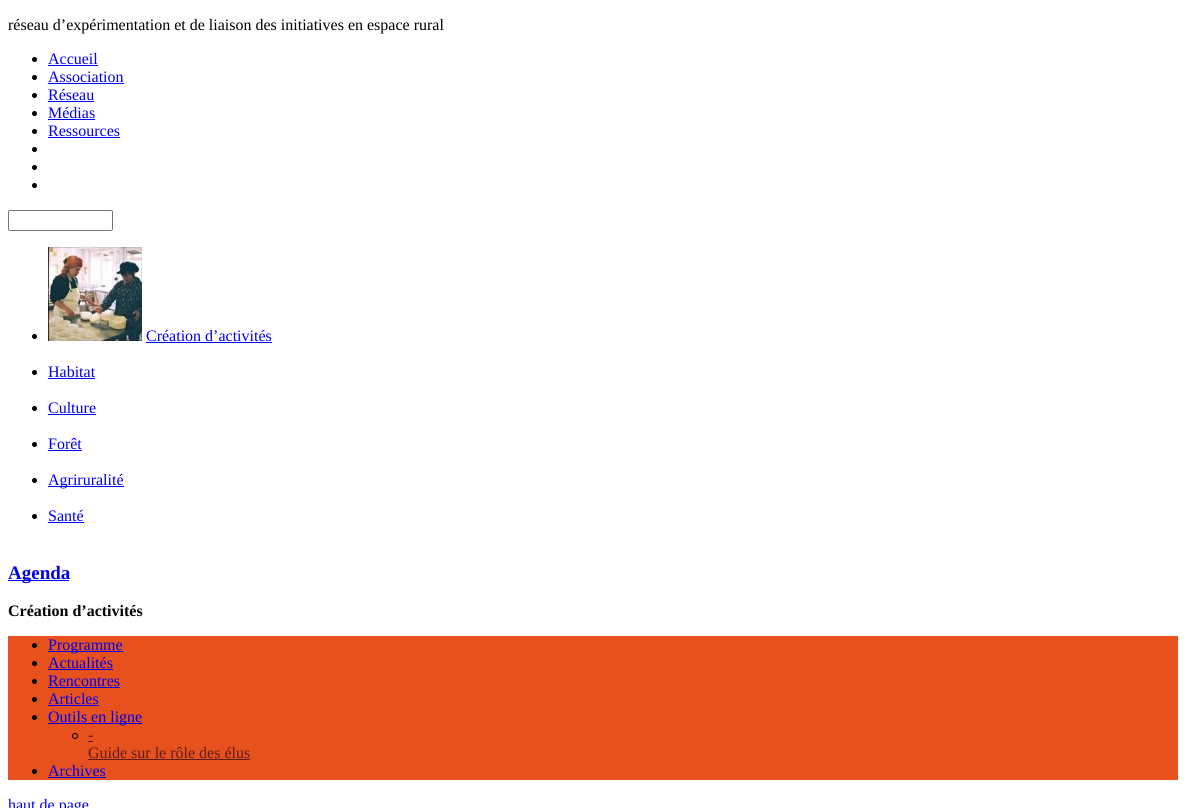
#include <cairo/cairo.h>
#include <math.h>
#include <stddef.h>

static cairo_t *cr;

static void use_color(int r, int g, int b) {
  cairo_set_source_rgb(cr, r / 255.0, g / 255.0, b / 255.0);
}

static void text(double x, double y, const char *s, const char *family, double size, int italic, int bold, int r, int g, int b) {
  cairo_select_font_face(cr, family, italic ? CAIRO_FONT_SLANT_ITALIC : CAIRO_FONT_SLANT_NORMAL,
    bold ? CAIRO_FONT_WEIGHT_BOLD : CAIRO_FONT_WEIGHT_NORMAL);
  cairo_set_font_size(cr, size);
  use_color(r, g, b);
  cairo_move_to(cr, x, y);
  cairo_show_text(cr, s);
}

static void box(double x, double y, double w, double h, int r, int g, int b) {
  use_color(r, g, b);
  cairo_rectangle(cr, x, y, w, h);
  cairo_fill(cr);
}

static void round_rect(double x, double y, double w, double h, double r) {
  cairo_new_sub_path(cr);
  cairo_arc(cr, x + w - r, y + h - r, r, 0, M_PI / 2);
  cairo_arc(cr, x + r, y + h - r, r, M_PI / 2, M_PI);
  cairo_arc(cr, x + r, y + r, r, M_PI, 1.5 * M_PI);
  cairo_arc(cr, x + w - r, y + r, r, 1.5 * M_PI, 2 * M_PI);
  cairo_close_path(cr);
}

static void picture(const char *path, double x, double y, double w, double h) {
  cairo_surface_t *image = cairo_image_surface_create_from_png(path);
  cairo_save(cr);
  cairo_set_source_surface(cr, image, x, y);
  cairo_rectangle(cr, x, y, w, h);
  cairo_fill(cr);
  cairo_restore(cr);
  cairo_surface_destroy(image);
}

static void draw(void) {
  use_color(255, 255, 255);
  cairo_paint(cr);
  use_color(0, 0, 0);
  cairo_arc(cr, 34.5, 59.5, 2.5, 0, 2 * M_PI);
  cairo_fill(cr);
  box(48, 65, 50, 1, 0, 0, 238);
  use_color(0, 0, 0);
  cairo_arc(cr, 34.5, 77.5, 2.5, 0, 2 * M_PI);
  cairo_fill(cr);
  box(48, 83, 76, 1, 0, 0, 238);
  use_color(0, 0, 0);
  cairo_arc(cr, 34.5, 95.5, 2.5, 0, 2 * M_PI);
  cairo_fill(cr);
  box(48, 101, 46, 1, 0, 0, 238);
  use_color(0, 0, 0);
  cairo_arc(cr, 34.5, 113.5, 2.5, 0, 2 * M_PI);
  cairo_fill(cr);
  box(48, 119, 47, 1, 0, 0, 238);
  use_color(0, 0, 0);
  cairo_arc(cr, 34.5, 131.5, 2.5, 0, 2 * M_PI);
  cairo_fill(cr);
  box(48, 137, 72, 1, 0, 0, 238);
  use_color(0, 0, 0);
  cairo_arc(cr, 34.5, 149.5, 2.5, 0, 2 * M_PI);
  cairo_fill(cr);
  cairo_arc(cr, 34.5, 167.5, 2.5, 0, 2 * M_PI);
  cairo_fill(cr);
  cairo_arc(cr, 34.5, 185.5, 2.5, 0, 2 * M_PI);
  cairo_fill(cr);
  round_rect(8.5, 210.5, 104, 20, 1.5);
  use_color(118, 118, 118);
  cairo_set_line_width(cr, 1);
  cairo_stroke(cr);
  use_color(0, 0, 0);
  cairo_arc(cr, 34.5, 336.5, 2.5, 0, 2 * M_PI);
  cairo_fill(cr);
  picture("img_01.png", 48, 247, 94, 94);
  box(146, 342, 126, 1, 0, 0, 238);
  use_color(0, 0, 0);
  cairo_arc(cr, 34.5, 372.5, 2.5, 0, 2 * M_PI);
  cairo_fill(cr);
  box(48, 378, 47, 1, 0, 0, 238);
  use_color(0, 0, 0);
  cairo_arc(cr, 34.5, 408.5, 2.5, 0, 2 * M_PI);
  cairo_fill(cr);
  box(48, 414, 48, 1, 0, 0, 238);
  use_color(0, 0, 0);
  cairo_arc(cr, 34.5, 444.5, 2.5, 0, 2 * M_PI);
  cairo_fill(cr);
  box(48, 450, 34, 1, 0, 0, 238);
  use_color(0, 0, 0);
  cairo_arc(cr, 34.5, 480.5, 2.5, 0, 2 * M_PI);
  cairo_fill(cr);
  box(48, 486, 76, 1, 0, 0, 238);
  use_color(0, 0, 0);
  cairo_arc(cr, 34.5, 516.5, 2.5, 0, 2 * M_PI);
  cairo_fill(cr);
  box(48, 522, 36, 1, 0, 0, 238);
  box(8, 580, 61, 1, 0, 0, 238);
  box(8, 636, 1170, 144, 230, 81, 30);
  use_color(0, 0, 0);
  cairo_arc(cr, 34.5, 645.5, 2.5, 0, 2 * M_PI);
  cairo_fill(cr);
  box(48, 651, 75, 1, 0, 0, 238);
  use_color(0, 0, 0);
  cairo_arc(cr, 34.5, 663.5, 2.5, 0, 2 * M_PI);
  cairo_fill(cr);
  box(48, 669, 65, 1, 0, 0, 238);
  use_color(0, 0, 0);
  cairo_arc(cr, 34.5, 681.5, 2.5, 0, 2 * M_PI);
  cairo_fill(cr);
  box(48, 687, 72, 1, 0, 0, 238);
  use_color(0, 0, 0);
  cairo_arc(cr, 34.5, 699.5, 2.5, 0, 2 * M_PI);
  cairo_fill(cr);
  box(48, 705, 51, 1, 0, 0, 238);
  use_color(0, 0, 0);
  cairo_arc(cr, 34.5, 717.5, 2.5, 0, 2 * M_PI);
  cairo_fill(cr);
  box(48, 723, 94, 1, 0, 0, 238);
  cairo_arc(cr, 75, 736, 2.5, 0, 2 * M_PI);
  use_color(0, 0, 0);
  cairo_stroke(cr);
  box(88, 741, 5, 1, 97, 27, 26);
  box(88, 759, 162, 1, 97, 27, 26);
  use_color(0, 0, 0);
  cairo_arc(cr, 34.5, 771.5, 2.5, 0, 2 * M_PI);
  cairo_fill(cr);
  box(48, 777, 58, 1, 0, 0, 238);
  text(8, 30, "réseau d’expérimentation et de liaison des initiatives en espace rural", "Liberation Serif", 16, 0, 0, 0, 0, 0);
  text(48, 64, "Accueil", "Liberation Serif", 16, 0, 0, 0, 0, 238);
  text(48, 82, "Association", "Liberation Serif", 16, 0, 0, 0, 0, 238);
  text(48, 100, "Réseau", "Liberation Serif", 16, 0, 0, 0, 0, 238);
  text(48, 118, "Médias", "Liberation Serif", 16, 0, 0, 0, 0, 238);
  text(48, 136, "Ressources", "Liberation Serif", 16, 0, 0, 0, 0, 238);
  text(146, 341, "Création d’activités", "Liberation Serif", 16, 0, 0, 0, 0, 238);
  text(48, 377, "Habitat", "Liberation Serif", 16, 0, 0, 0, 0, 238);
  text(48, 413, "Culture", "Liberation Serif", 16, 0, 0, 0, 0, 238);
  text(48, 449, "Forêt", "Liberation Serif", 16, 0, 0, 0, 0, 238);
  text(48, 485, "Agriruralité", "Liberation Serif", 16, 0, 0, 0, 0, 238);
  text(48, 521, "Santé", "Liberation Serif", 16, 0, 0, 0, 0, 238);
  text(8, 579, "Agenda", "Liberation Serif", 19, 0, 1, 0, 0, 238);
  text(8, 616, "Création d’activités", "Liberation Serif", 16, 0, 1, 0, 0, 0);
  text(48, 650, "Programme", "Liberation Serif", 16, 0, 0, 0, 0, 238);
  text(48, 668, "Actualités", "Liberation Serif", 16, 0, 0, 0, 0, 238);
  text(48, 686, "Rencontres", "Liberation Serif", 16, 0, 0, 0, 0, 238);
  text(48, 704, "Articles", "Liberation Serif", 16, 0, 0, 0, 0, 238);
  text(48, 722, "Outils en ligne", "Liberation Serif", 16, 0, 0, 0, 0, 238);
  text(88, 740, "-", "Liberation Serif", 16, 0, 0, 97, 27, 26);
  text(88, 758, "Guide sur le rôle des élus", "Liberation Serif", 16, 0, 0, 97, 27, 26);
  text(48, 776, "Archives", "Liberation Serif", 16, 0, 0, 0, 0, 238);
  text(8, 810, "haut de page", "Liberation Serif", 16, 0, 0, 0, 0, 238);
}

int main(void) {
  cairo_surface_t *surface = cairo_image_surface_create(CAIRO_FORMAT_RGB24, 1186, 808);
  cr = cairo_create(surface);
  cairo_font_options_t *options = cairo_font_options_create();
  cairo_font_options_set_hint_metrics(options, CAIRO_HINT_METRICS_OFF);
  cairo_font_options_set_hint_style(options, CAIRO_HINT_STYLE_NONE);
  cairo_set_font_options(cr, options);
  cairo_set_miter_limit(cr, 4);
  draw();
  cairo_surface_write_to_png(surface, "out.png");
  cairo_font_options_destroy(options);
  cairo_destroy(cr);
  cairo_surface_destroy(surface);
  return 0;
}
